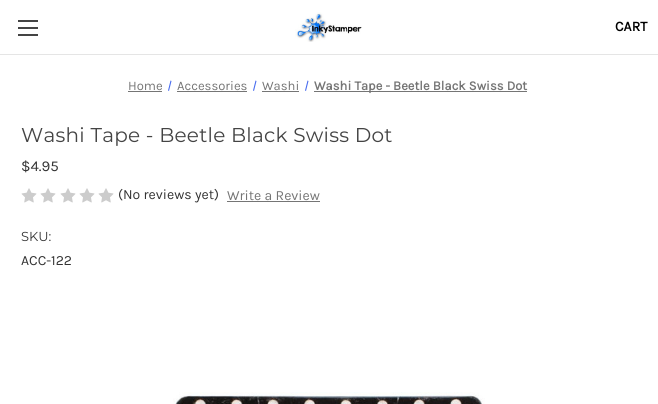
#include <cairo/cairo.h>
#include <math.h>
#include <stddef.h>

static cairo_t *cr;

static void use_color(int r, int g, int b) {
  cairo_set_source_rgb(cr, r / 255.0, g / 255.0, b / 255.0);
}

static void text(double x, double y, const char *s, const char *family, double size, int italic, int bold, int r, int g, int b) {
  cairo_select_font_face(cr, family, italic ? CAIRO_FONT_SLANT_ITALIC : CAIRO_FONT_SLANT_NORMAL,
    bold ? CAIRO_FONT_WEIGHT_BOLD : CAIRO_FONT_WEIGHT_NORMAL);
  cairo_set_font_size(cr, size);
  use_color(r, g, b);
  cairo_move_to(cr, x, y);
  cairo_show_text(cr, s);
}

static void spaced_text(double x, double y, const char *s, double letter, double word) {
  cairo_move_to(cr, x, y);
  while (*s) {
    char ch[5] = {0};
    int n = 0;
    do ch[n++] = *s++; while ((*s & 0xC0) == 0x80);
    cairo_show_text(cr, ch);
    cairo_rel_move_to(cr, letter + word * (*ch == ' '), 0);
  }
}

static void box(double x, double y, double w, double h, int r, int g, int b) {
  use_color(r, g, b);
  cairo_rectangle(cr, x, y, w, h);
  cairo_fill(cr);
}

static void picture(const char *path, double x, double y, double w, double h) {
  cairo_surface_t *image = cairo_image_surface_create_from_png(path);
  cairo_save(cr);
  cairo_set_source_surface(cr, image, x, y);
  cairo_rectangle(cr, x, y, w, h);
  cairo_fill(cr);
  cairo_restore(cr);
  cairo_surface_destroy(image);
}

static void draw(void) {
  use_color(255, 255, 255);
  cairo_paint(cr);
  box(0, 54, 658, 1, 229, 229, 229);
  box(18, 27, 20, 2, 68, 68, 68);
  box(18, 20, 20, 2, 68, 68, 68);
  box(18, 34, 20, 2, 68, 68, 68);
  picture("img_01.png", 295, 12, 67, 30);
  box(128, 91, 34, 1, 117, 117, 117);
  use_color(71, 107, 239);
  cairo_new_path(cr);
  cairo_move_to(cr, 170.5, 80.5);
  cairo_line_to(cr, 171.5, 81);
  cairo_line_to(cr, 169, 91);
  cairo_line_to(cr, 168, 90.5);
  cairo_close_path(cr);
  cairo_fill(cr);
  box(177, 91, 70, 1, 117, 117, 117);
  box(262, 91, 37, 1, 117, 117, 117);
  box(314, 91, 213, 1, 117, 117, 117);
  picture("img_02.png", 21, 188, 16, 15);
  picture("img_02.png", 40, 188, 16, 15);
  picture("img_02.png", 60, 188, 16, 15);
  picture("img_02.png", 79, 188, 16, 15);
  picture("img_02.png", 98, 188, 16, 15);
  box(227, 201, 93, 1, 117, 117, 117);
  picture("img_03.png", 173, 392, 312, 12);
  text(615, 31, "CART", "Karla", 14, 0, 1, 0, 0, 0);
  text(128, 90, "Home", "Karla", 13, 0, 0, 117, 117, 117);
  text(177, 90, "Accessories", "Karla", 13, 0, 0, 117, 117, 117);
  text(262, 90, "Washi", "Karla", 13, 0, 0, 117, 117, 117);
  use_color(71, 107, 239);
  cairo_new_path(cr);
  cairo_move_to(cr, 255.5, 80.5);
  cairo_line_to(cr, 256.5, 81);
  cairo_line_to(cr, 254, 91);
  cairo_line_to(cr, 253, 90.5);
  cairo_close_path(cr);
  cairo_move_to(cr, 307.5, 80.5);
  cairo_line_to(cr, 308.5, 81);
  cairo_line_to(cr, 306, 91);
  cairo_line_to(cr, 305, 90.5);
  cairo_close_path(cr);
  cairo_fill(cr);
  text(314, 90, "Washi Tape - Beetle Black Swiss Dot", "Karla", 13, 0, 1, 117, 117, 117);
  cairo_select_font_face(cr, "Montserrat", CAIRO_FONT_SLANT_NORMAL, CAIRO_FONT_WEIGHT_NORMAL);
  cairo_set_font_size(cr, 20);
  use_color(68, 68, 68);
  spaced_text(21, 142, "Washi Tape - Beetle Black Swiss Dot", 0.25, 0);
  text(21, 171, "$4.95", "Karla", 15, 0, 0, 51, 51, 51);
  text(118, 199, "(No reviews yet)", "Karla", 14, 0, 0, 51, 51, 51);
  text(227, 200, "Write a Review", "Karla", 14, 0, 0, 117, 117, 117);
  text(21, 241, "SKU:", "Montserrat", 13, 0, 0, 51, 51, 51);
  text(21, 265, "ACC-122", "Karla", 14, 0, 0, 51, 51, 51);
}

int main(void) {
  cairo_surface_t *surface = cairo_image_surface_create(CAIRO_FORMAT_RGB24, 658, 404);
  cr = cairo_create(surface);
  cairo_font_options_t *options = cairo_font_options_create();
  cairo_font_options_set_hint_metrics(options, CAIRO_HINT_METRICS_OFF);
  cairo_font_options_set_hint_style(options, CAIRO_HINT_STYLE_NONE);
  cairo_set_font_options(cr, options);
  cairo_set_miter_limit(cr, 4);
  draw();
  cairo_surface_write_to_png(surface, "out.png");
  cairo_font_options_destroy(options);
  cairo_destroy(cr);
  cairo_surface_destroy(surface);
  return 0;
}
